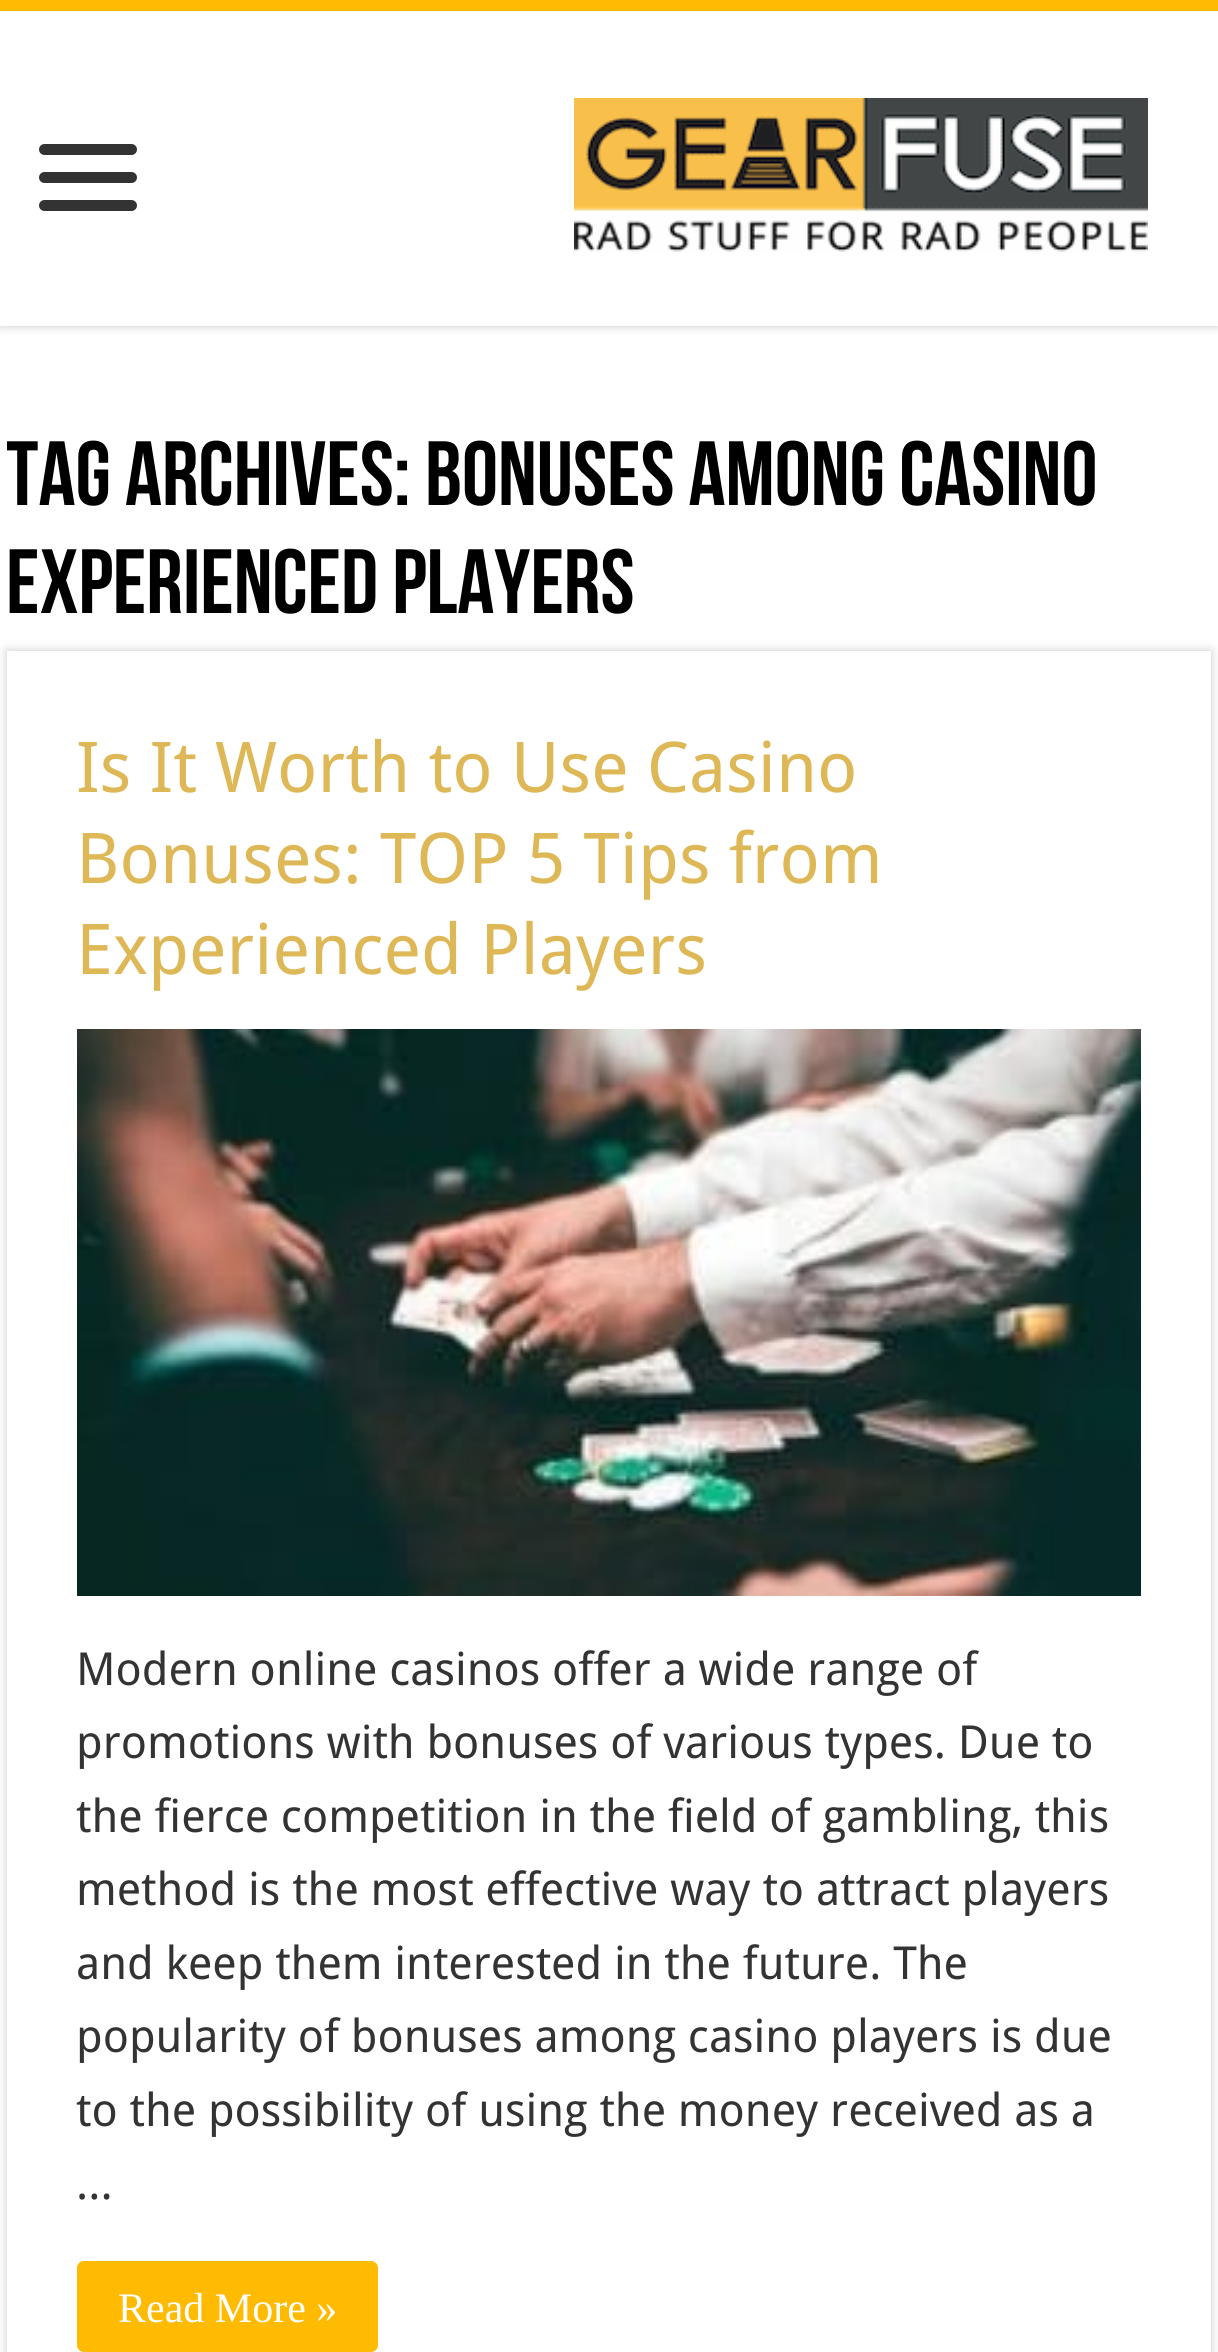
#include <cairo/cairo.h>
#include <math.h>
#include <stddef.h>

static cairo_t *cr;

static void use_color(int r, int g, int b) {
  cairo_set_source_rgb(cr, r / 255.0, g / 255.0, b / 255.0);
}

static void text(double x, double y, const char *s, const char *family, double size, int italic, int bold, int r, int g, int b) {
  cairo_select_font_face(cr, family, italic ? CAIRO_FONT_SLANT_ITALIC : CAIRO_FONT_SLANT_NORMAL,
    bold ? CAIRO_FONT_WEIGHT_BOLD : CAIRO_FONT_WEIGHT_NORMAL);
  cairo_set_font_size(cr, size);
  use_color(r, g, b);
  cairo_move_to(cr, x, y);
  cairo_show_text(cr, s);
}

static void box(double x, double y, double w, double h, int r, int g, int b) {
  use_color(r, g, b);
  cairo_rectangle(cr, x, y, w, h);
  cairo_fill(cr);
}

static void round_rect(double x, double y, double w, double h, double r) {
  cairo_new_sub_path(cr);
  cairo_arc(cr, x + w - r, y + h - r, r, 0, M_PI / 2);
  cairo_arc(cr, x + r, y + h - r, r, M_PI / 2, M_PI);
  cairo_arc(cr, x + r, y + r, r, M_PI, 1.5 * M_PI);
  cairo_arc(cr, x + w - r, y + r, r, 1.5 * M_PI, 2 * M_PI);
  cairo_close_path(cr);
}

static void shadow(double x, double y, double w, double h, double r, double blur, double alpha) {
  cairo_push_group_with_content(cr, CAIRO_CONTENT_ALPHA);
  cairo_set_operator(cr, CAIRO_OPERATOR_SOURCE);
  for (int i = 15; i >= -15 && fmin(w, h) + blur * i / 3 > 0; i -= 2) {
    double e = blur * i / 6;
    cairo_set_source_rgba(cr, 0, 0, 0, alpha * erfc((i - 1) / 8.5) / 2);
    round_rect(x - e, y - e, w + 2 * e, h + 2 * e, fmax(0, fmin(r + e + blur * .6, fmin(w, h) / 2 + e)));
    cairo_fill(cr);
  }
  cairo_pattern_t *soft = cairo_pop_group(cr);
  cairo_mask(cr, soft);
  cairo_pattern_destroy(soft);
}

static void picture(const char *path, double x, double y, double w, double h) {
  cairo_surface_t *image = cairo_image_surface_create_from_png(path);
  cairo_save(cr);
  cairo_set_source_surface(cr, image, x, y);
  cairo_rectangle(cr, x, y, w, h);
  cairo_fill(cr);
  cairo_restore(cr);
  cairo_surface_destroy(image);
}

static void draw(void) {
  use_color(255, 255, 255);
  cairo_paint(cr);
  use_color(202, 202, 202);
  shadow(0, 0, 1218, 326, 0, 5, 1);
  box(0, 11, 1218, 315, 255, 255, 255);
  box(0, 0, 1218, 11, 255, 187, 1);
  use_color(51, 51, 51);
  round_rect(39, 144, 98, 11, 5.5);
  cairo_fill(cr);
  round_rect(39, 172, 98, 11, 5.5);
  cairo_fill(cr);
  round_rect(39, 200, 98, 11, 5.5);
  cairo_fill(cr);
  picture("img_01.png", 574, 98, 574, 154);
  cairo_save(cr);
  cairo_set_fill_rule(cr, CAIRO_FILL_RULE_EVEN_ODD);
  cairo_new_path(cr);
  cairo_move_to(cr, 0, 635);
  cairo_line_to(cr, 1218, 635);
  cairo_line_to(cr, 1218, 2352);
  cairo_line_to(cr, 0, 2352);
  cairo_close_path(cr);
  cairo_move_to(cr, 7, 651);
  cairo_line_to(cr, 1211, 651);
  cairo_line_to(cr, 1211, 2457);
  cairo_line_to(cr, 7, 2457);
  cairo_close_path(cr);
  cairo_clip(cr);
  use_color(202, 202, 202);
  shadow(7, 651, 1204, 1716, 0, 5, 1);
  cairo_restore(cr);
  picture("img_02.png", 77, 1029, 1064, 567);
  use_color(255, 187, 1);
  round_rect(77, 2261, 301, 91, 7);
  cairo_fill(cr);
  cairo_save(cr);
  cairo_rectangle(cr, 7, 413, 1204, 238);
  cairo_clip(cr);
  text(6, 505, "Tag Archives:", "Bebas Neue", 91, 0, 0, 0, 0, 0);
  cairo_restore(cr);
  text(425, 505, "Bonuses Among Casino", "Bebas Neue", 91, 0, 0, 0, 0, 0);
  text(6, 613, "Experienced Players", "Bebas Neue", 91, 0, 0, 0, 0, 0);
  text(76, 792, "Is It Worth to Use Casino", "Droid Sans", 70, 0, 0, 222, 184, 86);
  text(76, 883, "Bonuses: TOP 5 Tips from", "Droid Sans", 70, 0, 0, 222, 184, 86);
  text(76, 974, "Experienced Players", "Droid Sans", 70, 0, 0, 222, 184, 86);
  text(76, 1685, "Modern online casinos offer a wide range of", "Droid Sans", 45.5, 0, 0, 51, 51, 51);
  text(76, 1758, "promotions with bonuses of various types. Due to", "Droid Sans", 45.5, 0, 0, 51, 51, 51);
  text(76, 1832, "the fierce competition in the field of gambling, this", "Droid Sans", 45.5, 0, 0, 51, 51, 51);
  text(76, 1905, "method is the most effective way to attract players", "Droid Sans", 45.5, 0, 0, 51, 51, 51);
  text(76, 1979, "and keep them interested in the future. The", "Droid Sans", 45.5, 0, 0, 51, 51, 51);
  text(76, 2052, "popularity of bonuses among casino players is due", "Droid Sans", 45.5, 0, 0, 51, 51, 51);
  text(76, 2126, "to the possibility of using the money received as a", "Droid Sans", 45.5, 0, 0, 51, 51, 51);
  text(76, 2199, "...", "Droid Sans", 45.5, 0, 0, 51, 51, 51);
  text(118, 2322, "Read More »", "Liberation Serif", 42, 0, 0, 255, 255, 255);
}

int main(void) {
  cairo_surface_t *surface = cairo_image_surface_create(CAIRO_FORMAT_RGB24, 1218, 2352);
  cr = cairo_create(surface);
  cairo_font_options_t *options = cairo_font_options_create();
  cairo_font_options_set_hint_metrics(options, CAIRO_HINT_METRICS_OFF);
  cairo_font_options_set_hint_style(options, CAIRO_HINT_STYLE_NONE);
  cairo_set_font_options(cr, options);
  cairo_set_miter_limit(cr, 4);
  draw();
  cairo_surface_write_to_png(surface, "out.png");
  cairo_font_options_destroy(options);
  cairo_destroy(cr);
  cairo_surface_destroy(surface);
  return 0;
}
